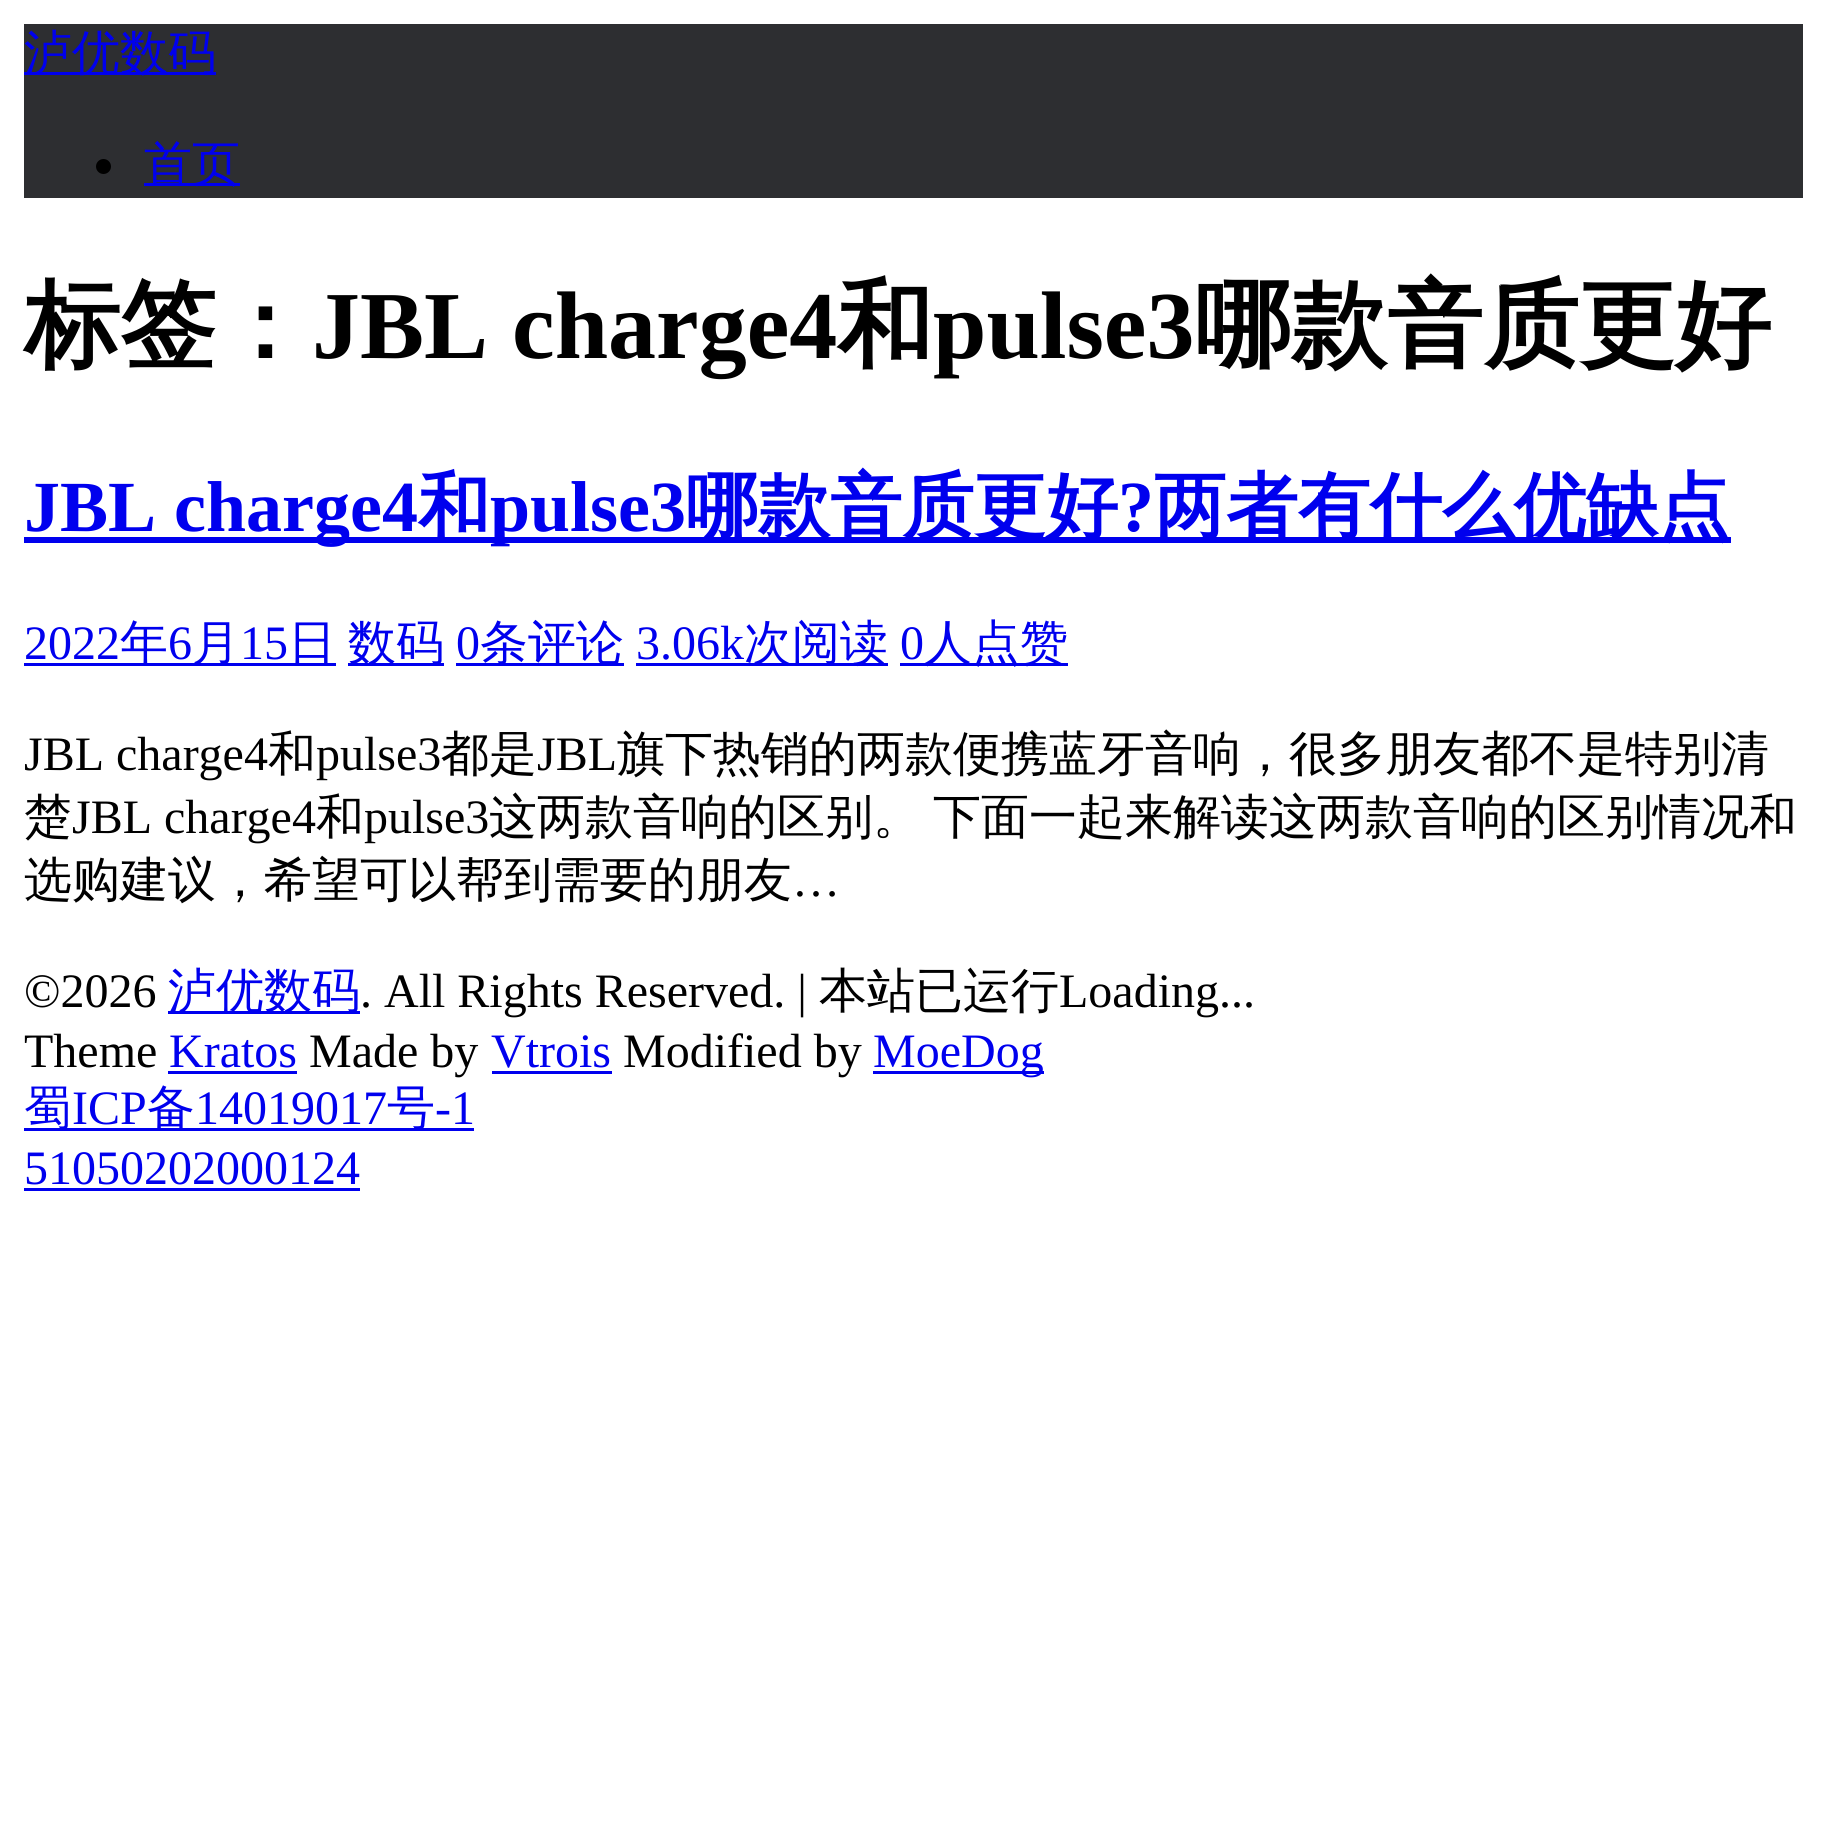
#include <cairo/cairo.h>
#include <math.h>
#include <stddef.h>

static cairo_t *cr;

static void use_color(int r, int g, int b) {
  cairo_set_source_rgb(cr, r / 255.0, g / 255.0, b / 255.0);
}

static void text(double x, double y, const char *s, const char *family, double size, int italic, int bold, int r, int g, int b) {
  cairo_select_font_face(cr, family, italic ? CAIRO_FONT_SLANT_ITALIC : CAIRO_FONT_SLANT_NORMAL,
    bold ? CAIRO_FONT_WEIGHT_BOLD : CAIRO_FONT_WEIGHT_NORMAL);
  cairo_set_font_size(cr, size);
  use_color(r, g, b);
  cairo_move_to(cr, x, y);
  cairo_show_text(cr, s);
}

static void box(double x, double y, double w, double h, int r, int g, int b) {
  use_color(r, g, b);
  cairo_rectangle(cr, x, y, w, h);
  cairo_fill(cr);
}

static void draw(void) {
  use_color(255, 255, 255);
  cairo_paint(cr);
  box(24, 24, 1779, 174, 45, 46, 49);
  box(24, 72, 192, 3, 0, 0, 238);
  use_color(0, 0, 0);
  cairo_arc(cr, 103.5, 166.5, 7.5, 0, 2 * M_PI);
  cairo_fill(cr);
  box(144, 183, 96, 3, 0, 0, 238);
  box(24, 537, 1707, 6, 0, 0, 238);
  box(24, 663, 312, 3, 0, 0, 238);
  box(348, 663, 96, 3, 0, 0, 238);
  box(456, 663, 168, 3, 0, 0, 238);
  box(636, 663, 252, 3, 0, 0, 238);
  box(900, 663, 168, 3, 0, 0, 238);
  box(168, 1011, 192, 3, 0, 0, 238);
  box(168, 1071, 129, 3, 0, 0, 238);
  box(492, 1071, 120, 3, 0, 0, 238);
  box(873, 1071, 171, 3, 0, 0, 238);
  box(24, 1128, 450, 3, 0, 0, 238);
  box(24, 1188, 336, 3, 0, 0, 238);
  text(24, 69, "泸优数码", "WenQuanYi Zen Hei Medium", 48, 0, 0, 0, 0, 238);
  text(144, 180, "首页", "WenQuanYi Zen Hei Medium", 48, 0, 0, 0, 0, 238);
  text(24, 358, "标签：", "WenQuanYi Zen Hei", 96, 0, 1, 0, 0, 0);
  text(312, 358, "JBL charge4", "Liberation Serif", 96, 0, 1, 0, 0, 0);
  text(837, 358, "和", "WenQuanYi Zen Hei", 96, 0, 1, 0, 0, 0);
  text(933, 358, "pulse3", "Liberation Serif", 96, 0, 1, 0, 0, 0);
  text(1195, 358, "哪款音质更好", "WenQuanYi Zen Hei", 96, 0, 1, 0, 0, 0);
  text(24, 531, "JBL charge4", "Liberation Serif", 72, 0, 1, 0, 0, 238);
  text(418, 531, "和", "WenQuanYi Zen Hei", 72, 0, 1, 0, 0, 238);
  text(490, 531, "pulse3", "Liberation Serif", 72, 0, 1, 0, 0, 238);
  text(686, 531, "哪款音质更好", "WenQuanYi Zen Hei", 72, 0, 1, 0, 0, 238);
  text(1118, 531, "?", "Liberation Serif", 72, 0, 1, 0, 0, 238);
  text(1154, 531, "两者有什么优缺点", "WenQuanYi Zen Hei", 72, 0, 1, 0, 0, 238);
  text(24, 659, "2022", "Liberation Serif", 48, 0, 0, 0, 0, 238);
  text(120, 659, "年", "WenQuanYi Zen Hei Medium", 48, 0, 0, 0, 0, 238);
  text(168, 659, "6", "Liberation Serif", 48, 0, 0, 0, 0, 238);
  text(192, 659, "月", "WenQuanYi Zen Hei Medium", 48, 0, 0, 0, 0, 238);
  text(240, 659, "15", "Liberation Serif", 48, 0, 0, 0, 0, 238);
  text(288, 659, "日", "WenQuanYi Zen Hei Medium", 48, 0, 0, 0, 0, 238);
  text(348, 659, "数码", "WenQuanYi Zen Hei Medium", 48, 0, 0, 0, 0, 238);
  text(456, 659, "0", "Liberation Serif", 48, 0, 0, 0, 0, 238);
  text(480, 659, "条评论", "WenQuanYi Zen Hei Medium", 48, 0, 0, 0, 0, 238);
  text(636, 659, "3.06k", "Liberation Serif", 48, 0, 0, 0, 0, 238);
  text(744, 659, "次阅读", "WenQuanYi Zen Hei Medium", 48, 0, 0, 0, 0, 238);
  text(900, 659, "0", "Liberation Serif", 48, 0, 0, 0, 0, 238);
  text(924, 659, "人点赞", "WenQuanYi Zen Hei Medium", 48, 0, 0, 0, 0, 238);
  text(24, 770, "JBL charge4", "Liberation Serif", 48, 0, 0, 0, 0, 0);
  text(268, 770, "和", "WenQuanYi Zen Hei Medium", 48, 0, 0, 0, 0, 0);
  text(316, 770, "pulse3", "Liberation Serif", 48, 0, 0, 0, 0, 0);
  text(441, 770, "都是", "WenQuanYi Zen Hei Medium", 48, 0, 0, 0, 0, 0);
  text(537, 770, "JBL", "Liberation Serif", 48, 0, 0, 0, 0, 0);
  text(617, 770, "旗下热销的两款便携蓝牙音响，很多朋友都不是特别清", "WenQuanYi Zen Hei Medium", 48, 0, 0, 0, 0, 0);
  text(24, 833, "楚", "WenQuanYi Zen Hei Medium", 48, 0, 0, 0, 0, 0);
  text(72, 833, "JBL charge4", "Liberation Serif", 48, 0, 0, 0, 0, 0);
  text(316, 833, "和", "WenQuanYi Zen Hei Medium", 48, 0, 0, 0, 0, 0);
  text(364, 833, "pulse3", "Liberation Serif", 48, 0, 0, 0, 0, 0);
  text(489, 833, "这两款音响的区别。", "WenQuanYi Zen Hei Medium", 48, 0, 0, 0, 0, 0);
  text(933, 833, "下面一起来解读这两款音响的区别情况和", "WenQuanYi Zen Hei Medium", 48, 0, 0, 0, 0, 0);
  text(24, 896, "选购建议，希望可以帮到需要的朋友", "WenQuanYi Zen Hei Medium", 48, 0, 0, 0, 0, 0);
  text(792, 896, "…", "Liberation Serif", 48, 0, 0, 0, 0, 0);
  text(24, 1007, "©2026", "Liberation Serif", 48, 0, 0, 0, 0, 0);
  text(168, 1007, "泸优数码", "WenQuanYi Zen Hei Medium", 48, 0, 0, 0, 0, 238);
  text(360, 1007, ". All Rights Reserved. |", "Liberation Serif", 48, 0, 0, 0, 0, 0);
  text(819, 1007, "本站已运行", "WenQuanYi Zen Hei Medium", 48, 0, 0, 0, 0, 0);
  text(1059, 1007, "Loading...", "Liberation Serif", 48, 0, 0, 0, 0, 0);
  text(24, 1067, "Theme", "Liberation Serif", 48, 0, 0, 0, 0, 0);
  text(169, 1067, "Kratos", "Liberation Serif", 48, 0, 0, 0, 0, 238);
  text(309, 1067, "Made by", "Liberation Serif", 48, 0, 0, 0, 0, 0);
  text(491, 1067, "Vtrois", "Liberation Serif", 48, 0, 0, 0, 0, 238);
  text(623, 1067, "Modified by", "Liberation Serif", 48, 0, 0, 0, 0, 0);
  text(873, 1067, "MoeDog", "Liberation Serif", 48, 0, 0, 0, 0, 238);
  text(24, 1124, "蜀", "WenQuanYi Zen Hei Medium", 48, 0, 0, 0, 0, 238);
  text(72, 1124, "ICP", "Liberation Serif", 48, 0, 0, 0, 0, 238);
  text(147, 1124, "备", "WenQuanYi Zen Hei Medium", 48, 0, 0, 0, 0, 238);
  text(195, 1124, "14019017", "Liberation Serif", 48, 0, 0, 0, 0, 238);
  text(387, 1124, "号", "WenQuanYi Zen Hei Medium", 48, 0, 0, 0, 0, 238);
  text(435, 1124, "-1", "Liberation Serif", 48, 0, 0, 0, 0, 238);
  text(24, 1184, "51050202000124", "Liberation Serif", 48, 0, 0, 0, 0, 238);
}

int main(void) {
  cairo_surface_t *surface = cairo_image_surface_create(CAIRO_FORMAT_RGB24, 1825, 1821);
  cr = cairo_create(surface);
  cairo_font_options_t *options = cairo_font_options_create();
  cairo_font_options_set_hint_metrics(options, CAIRO_HINT_METRICS_OFF);
  cairo_font_options_set_hint_style(options, CAIRO_HINT_STYLE_NONE);
  cairo_set_font_options(cr, options);
  cairo_set_miter_limit(cr, 4);
  draw();
  cairo_surface_write_to_png(surface, "out.png");
  cairo_font_options_destroy(options);
  cairo_destroy(cr);
  cairo_surface_destroy(surface);
  return 0;
}
